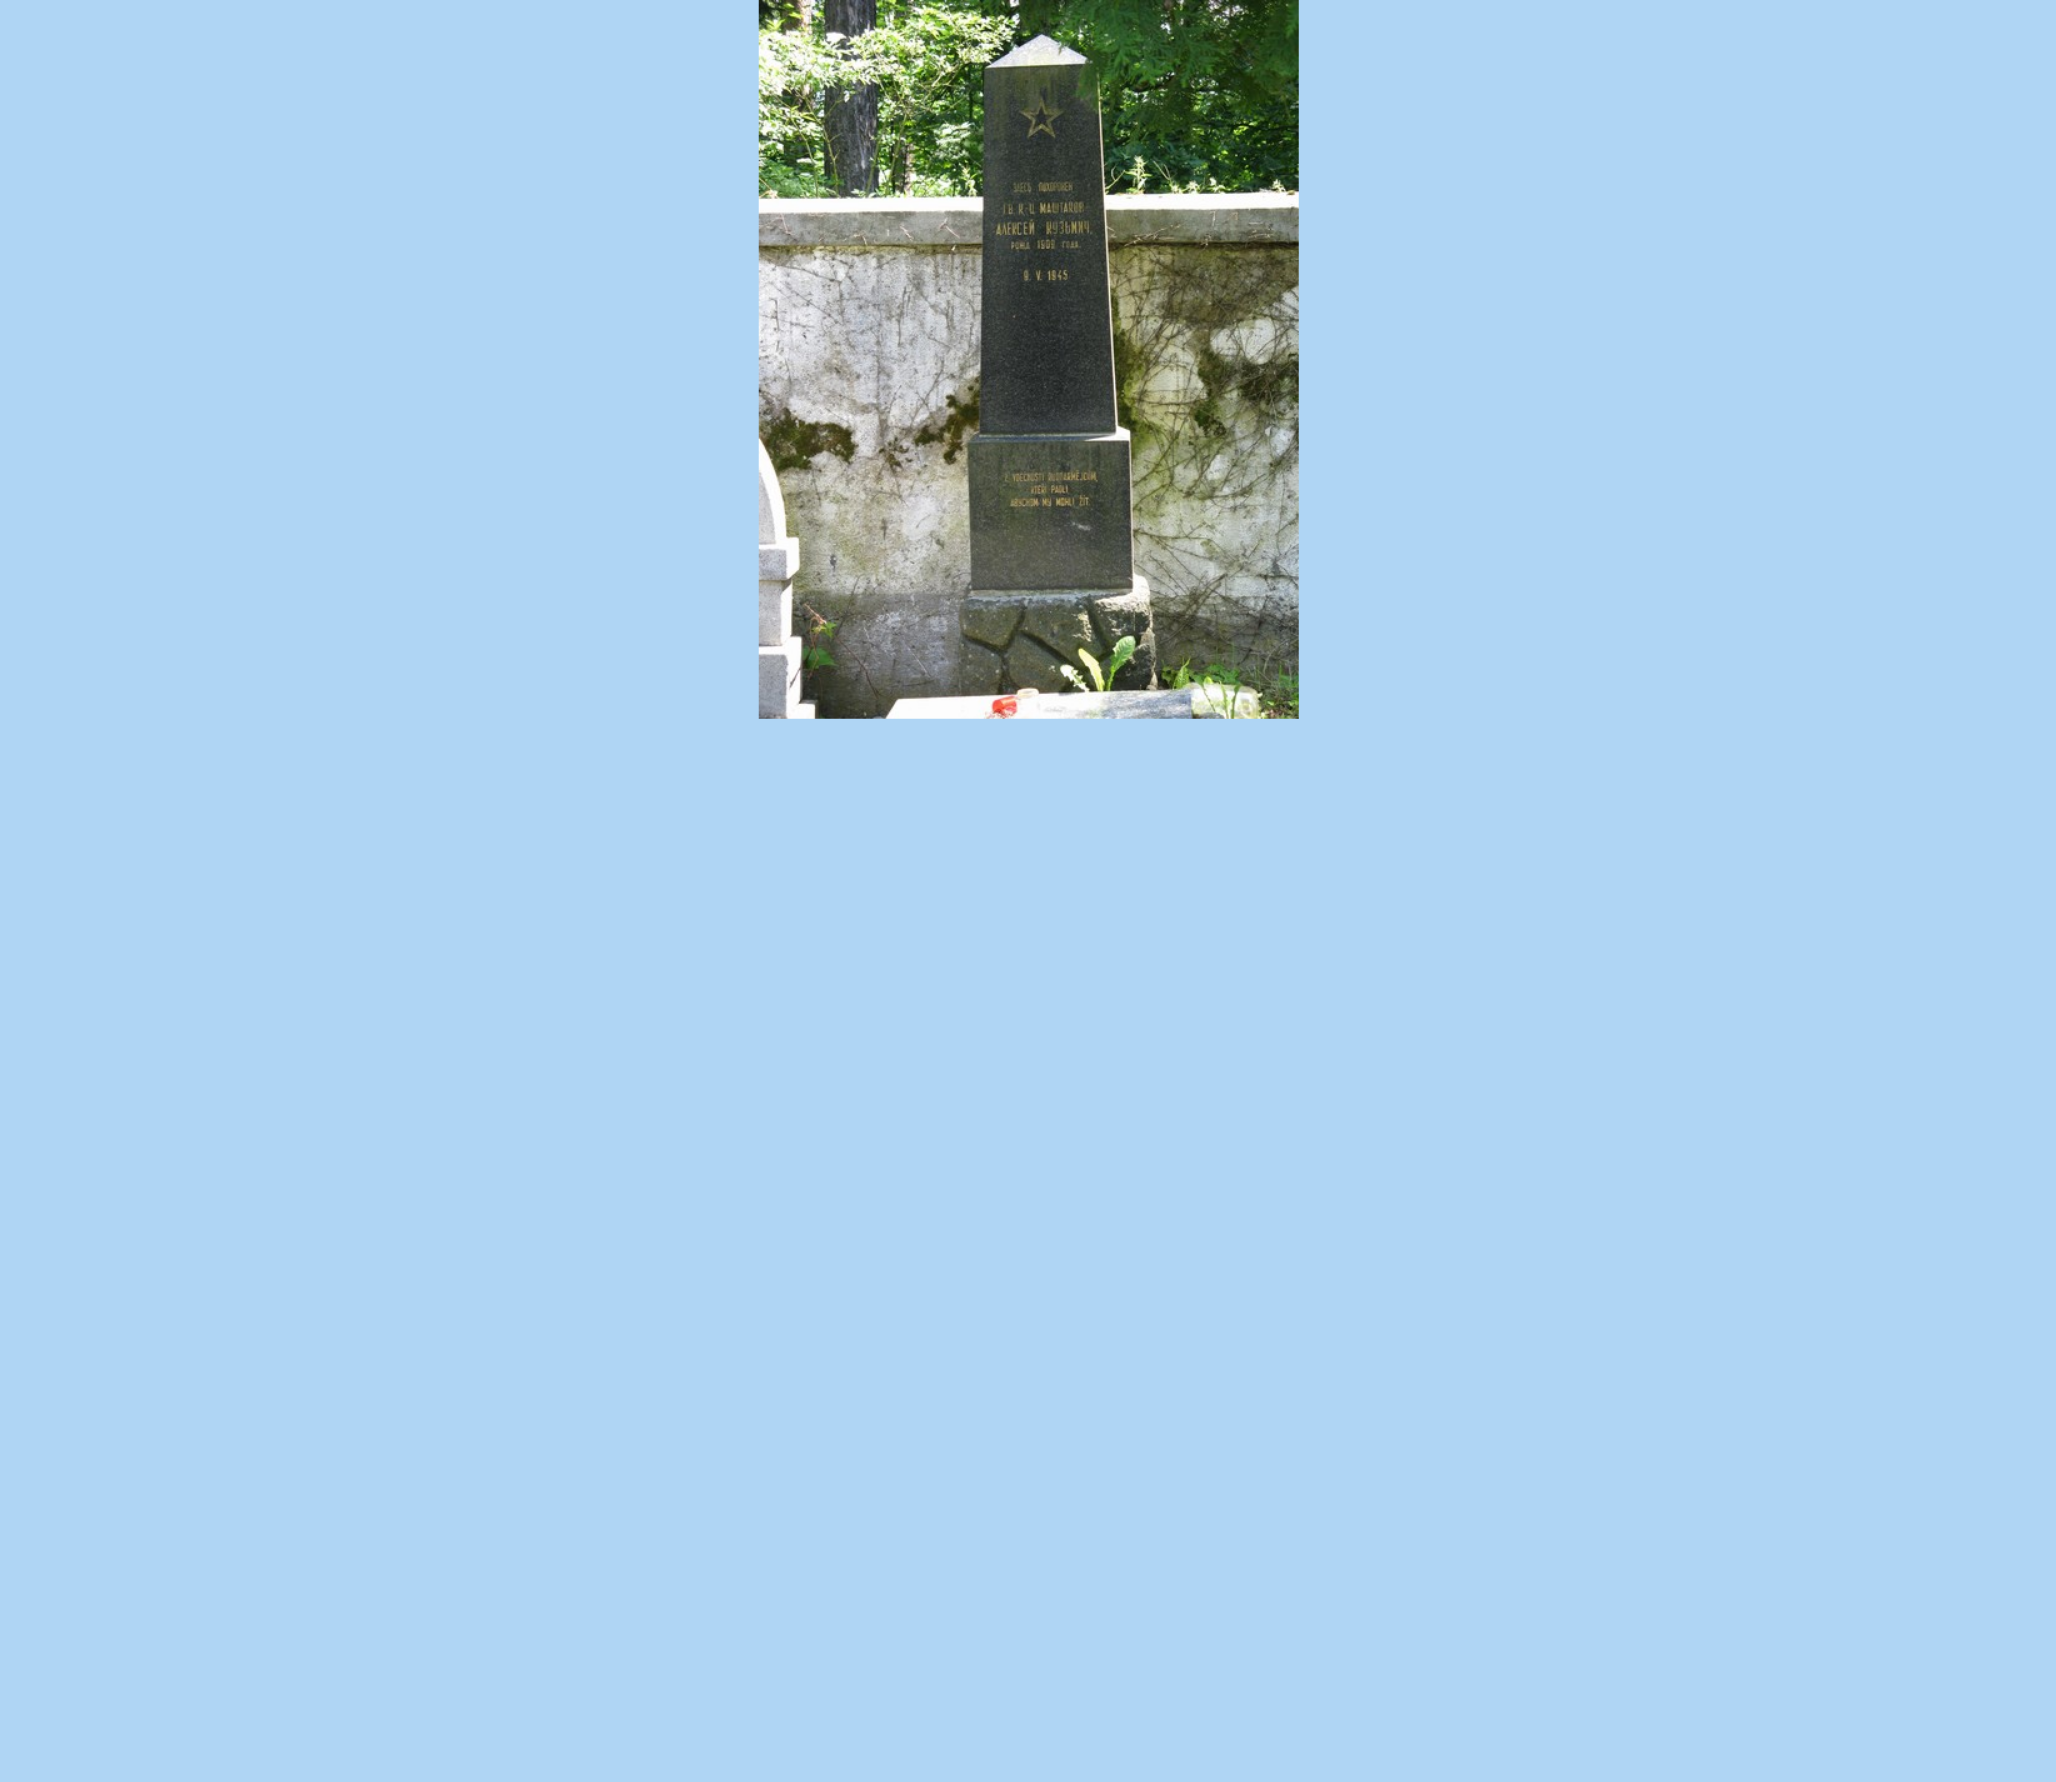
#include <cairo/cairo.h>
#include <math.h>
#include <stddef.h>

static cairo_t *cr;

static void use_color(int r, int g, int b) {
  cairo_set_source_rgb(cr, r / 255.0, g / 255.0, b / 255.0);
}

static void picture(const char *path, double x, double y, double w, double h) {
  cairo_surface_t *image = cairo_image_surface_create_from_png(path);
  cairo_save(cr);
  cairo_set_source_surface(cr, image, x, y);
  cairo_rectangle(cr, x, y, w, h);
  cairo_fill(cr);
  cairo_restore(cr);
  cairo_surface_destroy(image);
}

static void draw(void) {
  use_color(175, 213, 244);
  cairo_paint(cr);
  picture("img_01.png", 758, 0, 541, 719);
}

int main(void) {
  cairo_surface_t *surface = cairo_image_surface_create(CAIRO_FORMAT_RGB24, 2056, 1782);
  cr = cairo_create(surface);
  cairo_font_options_t *options = cairo_font_options_create();
  cairo_font_options_set_hint_metrics(options, CAIRO_HINT_METRICS_OFF);
  cairo_font_options_set_hint_style(options, CAIRO_HINT_STYLE_NONE);
  cairo_set_font_options(cr, options);
  cairo_set_miter_limit(cr, 4);
  draw();
  cairo_surface_write_to_png(surface, "out.png");
  cairo_font_options_destroy(options);
  cairo_destroy(cr);
  cairo_surface_destroy(surface);
  return 0;
}
